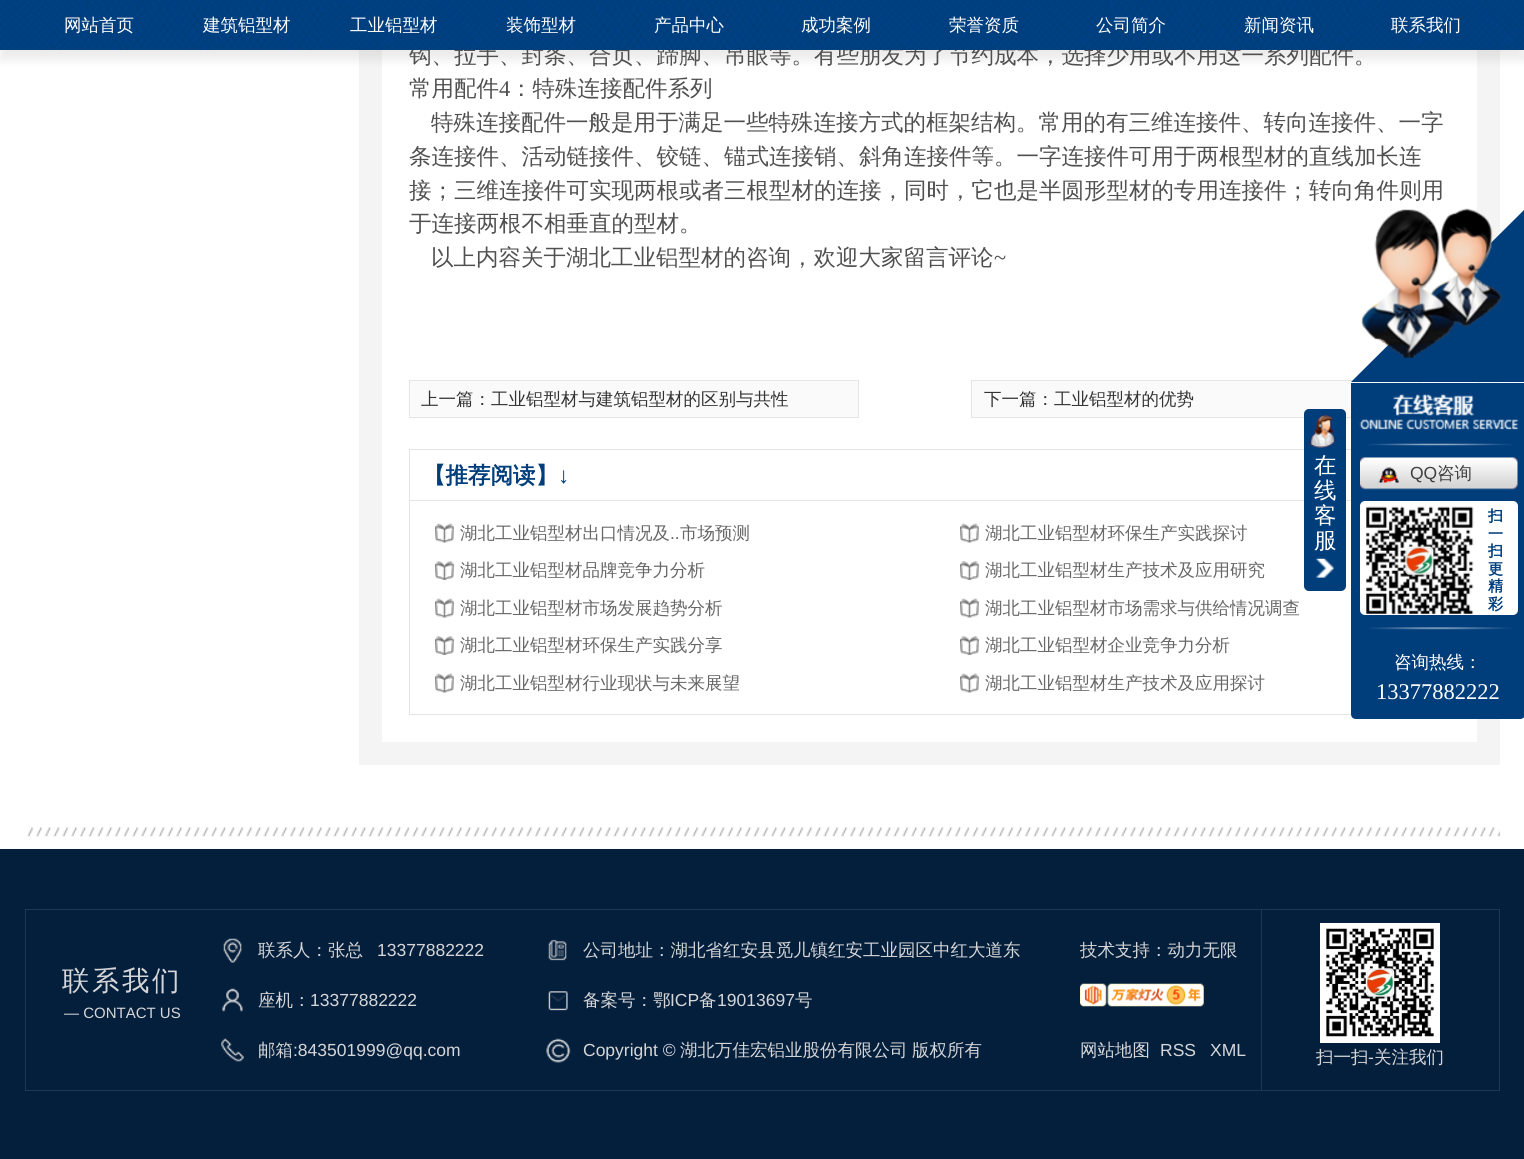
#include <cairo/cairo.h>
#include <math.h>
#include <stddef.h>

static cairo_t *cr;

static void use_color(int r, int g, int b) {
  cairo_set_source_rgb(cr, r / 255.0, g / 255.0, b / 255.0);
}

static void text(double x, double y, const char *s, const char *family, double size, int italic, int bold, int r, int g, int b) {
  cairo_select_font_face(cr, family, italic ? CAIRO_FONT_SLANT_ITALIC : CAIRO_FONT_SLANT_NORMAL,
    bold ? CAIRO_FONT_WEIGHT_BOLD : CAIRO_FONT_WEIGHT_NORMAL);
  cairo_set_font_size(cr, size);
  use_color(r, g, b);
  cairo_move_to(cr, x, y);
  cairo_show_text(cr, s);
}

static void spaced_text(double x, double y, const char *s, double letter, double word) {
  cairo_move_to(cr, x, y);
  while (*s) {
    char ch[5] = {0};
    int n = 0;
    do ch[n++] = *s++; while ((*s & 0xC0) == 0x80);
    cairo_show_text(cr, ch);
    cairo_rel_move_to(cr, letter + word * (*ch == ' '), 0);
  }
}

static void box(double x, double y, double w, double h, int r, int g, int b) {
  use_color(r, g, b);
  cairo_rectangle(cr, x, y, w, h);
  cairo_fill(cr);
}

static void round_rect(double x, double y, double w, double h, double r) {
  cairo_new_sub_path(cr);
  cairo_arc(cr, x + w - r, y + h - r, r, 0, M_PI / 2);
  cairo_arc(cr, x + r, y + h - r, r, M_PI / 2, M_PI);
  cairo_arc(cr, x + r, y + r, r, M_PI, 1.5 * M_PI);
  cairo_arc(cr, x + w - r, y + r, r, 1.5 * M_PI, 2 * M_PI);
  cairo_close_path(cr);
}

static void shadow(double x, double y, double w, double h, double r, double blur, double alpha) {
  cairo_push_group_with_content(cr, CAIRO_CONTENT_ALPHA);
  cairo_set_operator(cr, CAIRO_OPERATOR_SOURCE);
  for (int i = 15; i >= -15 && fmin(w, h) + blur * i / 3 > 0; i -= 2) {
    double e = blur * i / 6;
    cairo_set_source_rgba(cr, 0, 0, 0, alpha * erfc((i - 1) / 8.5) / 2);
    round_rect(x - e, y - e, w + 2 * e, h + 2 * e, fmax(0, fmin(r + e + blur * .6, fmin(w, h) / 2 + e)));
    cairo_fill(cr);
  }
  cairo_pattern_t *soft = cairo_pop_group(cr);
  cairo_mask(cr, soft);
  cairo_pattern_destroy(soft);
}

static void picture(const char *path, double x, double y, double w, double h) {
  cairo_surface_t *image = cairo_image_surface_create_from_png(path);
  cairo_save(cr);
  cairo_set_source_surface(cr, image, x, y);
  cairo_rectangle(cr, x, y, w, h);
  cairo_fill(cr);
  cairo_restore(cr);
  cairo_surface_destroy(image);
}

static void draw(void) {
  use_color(255, 255, 255);
  cairo_paint(cr);
  cairo_rectangle(cr, 370.5, -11.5, 1118, 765);
  use_color(244, 244, 244);
  cairo_set_line_width(cr, 23);
  cairo_stroke(cr);
  use_color(0, 0, 0);
  shadow(0, 10, 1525, 50, 0, 5, 0.08);
  use_color(250, 250, 250);
  cairo_rectangle(cr, 409.5, 380.5, 449, 37);
  cairo_fill_preserve(cr);
  use_color(229, 229, 229);
  cairo_set_line_width(cr, 1);
  cairo_stroke(cr);
  use_color(250, 250, 250);
  cairo_rectangle(cr, 971.5, 380.5, 449, 37);
  cairo_fill_preserve(cr);
  use_color(229, 229, 229);
  cairo_stroke(cr);
  cairo_rectangle(cr, 409.5, 449.5, 1040, 265);
  cairo_stroke(cr);
  box(410, 500, 941, 1, 229, 229, 229);
  picture("img_02.png", 435, 523, 19, 20);
  picture("img_02.png", 960, 523, 19, 20);
  picture("img_03.png", 435, 561, 19, 19);
  picture("img_03.png", 960, 561, 19, 19);
  picture("img_02.png", 435, 598, 19, 20);
  picture("img_02.png", 960, 598, 19, 20);
  picture("img_03.png", 435, 636, 19, 19);
  picture("img_03.png", 960, 636, 19, 19);
  picture("img_02.png", 435, 673, 19, 20);
  picture("img_02.png", 960, 673, 19, 20);
  picture("img_04.png", 27, 827, 1473, 10);
  use_color(0, 61, 123);
  round_rect(1304, 409, 42, 182, 5);
  cairo_fill(cr);
  picture("img_05.png", 1315, 558, 19, 20);
  picture("img_06.png", 1307, 415, 28, 33);
  cairo_new_path(cr);
  cairo_move_to(cr, 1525, 209);
  cairo_line_to(cr, 1351, 382);
  cairo_line_to(cr, 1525, 382);
  cairo_close_path(cr);
  cairo_fill(cr);
  picture("img_07.png", 1361, 208, 141, 150);
  cairo_new_path(cr);
  cairo_move_to(cr, 1351, 383);
  cairo_line_to(cr, 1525, 383);
  cairo_line_to(cr, 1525, 714);
  cairo_curve_to(cr, 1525, 717, 1523, 719, 1520, 719);
  cairo_line_to(cr, 1356, 719);
  cairo_curve_to(cr, 1353, 719, 1351, 717, 1351, 714);
  cairo_close_path(cr);
  cairo_fill(cr);
  picture("img_08.png", 1359, 394, 160, 36);
  picture("img_09.png", 1368, 443, 145, 3);
  picture("img_10.png", 1360, 457, 158, 33);
  picture("img_11.png", 1378, 467, 21, 16);
  use_color(255, 255, 255);
  round_rect(1360, 501, 158, 114, 5);
  cairo_fill(cr);
  picture("img_12.png", 1366, 506, 108, 108);
  picture("img_13.png", 1369, 627, 143, 3);
  box(0, 849, 1524, 310, 4, 31, 60);
  cairo_rectangle(cr, 25.5, 909.5, 1474, 181);
  use_color(31, 55, 80);
  cairo_stroke(cr);
  picture("img_14.png", 223, 938, 19, 25);
  picture("img_15.png", 222, 988, 21, 24);
  picture("img_16.png", 221, 1038, 23, 24);
  picture("img_17.png", 548, 939, 19, 22);
  picture("img_18.png", 548, 991, 20, 20);
  picture("img_19.png", 546, 1038, 25, 25);
  box(1261, 910, 1, 180, 31, 55, 80);
  picture("img_20.png", 1080, 983, 124, 24);
  box(1320, 923, 120, 120, 255, 255, 255);
  picture("img_21.png", 1326, 928, 108, 109);
  text(409, 63, "钩、拉手、封条、合页、蹄脚、吊眼等。有些朋友为了节约成本，选择少用或不用这一系列配件。", "WenQuanYi Zen Hei Medium", 22.5, 0, 0, 80, 80, 80);
  picture("img_01.png", 0, 0, 1524, 50);
  text(1391, 31, "联系我们", "WenQuanYi Zen Hei Medium", 17.5, 0, 0, 255, 255, 255);
  text(1244, 31, "新闻资讯", "WenQuanYi Zen Hei Medium", 17.5, 0, 0, 255, 255, 255);
  text(1096, 31, "公司简介", "WenQuanYi Zen Hei Medium", 17.5, 0, 0, 255, 255, 255);
  text(949, 31, "荣誉资质", "WenQuanYi Zen Hei Medium", 17.5, 0, 0, 255, 255, 255);
  text(801, 31, "成功案例", "WenQuanYi Zen Hei Medium", 17.5, 0, 0, 255, 255, 255);
  text(654, 31, "产品中心", "WenQuanYi Zen Hei Medium", 17.5, 0, 0, 255, 255, 255);
  text(506, 31, "装饰型材", "WenQuanYi Zen Hei Medium", 17.5, 0, 0, 255, 255, 255);
  text(350, 31, "工业铝型材", "WenQuanYi Zen Hei Medium", 17.5, 0, 0, 255, 255, 255);
  text(203, 31, "建筑铝型材", "WenQuanYi Zen Hei Medium", 17.5, 0, 0, 255, 255, 255);
  text(64, 31, "网站首页", "WenQuanYi Zen Hei Medium", 17.5, 0, 0, 255, 255, 255);
  text(409, 96, "常用配件", "WenQuanYi Zen Hei Medium", 22.5, 0, 0, 80, 80, 80);
  text(499, 96, "4", "Liberation Serif", 22.5, 0, 0, 80, 80, 80);
  text(510, 96, "：特殊连接配件系列", "WenQuanYi Zen Hei Medium", 22.5, 0, 0, 80, 80, 80);
  text(431, 130, "特殊连接配件一般是用于满足一些特殊连接方式的框架结构。常用的有三维连接件、转向连接件、一字", "WenQuanYi Zen Hei Medium", 22.5, 0, 0, 80, 80, 80);
  text(409, 164, "条连接件、活动链接件、铰链、锚式连接销、斜角连接件等。一字连接件可用于两根型材的直线加长连", "WenQuanYi Zen Hei Medium", 22.5, 0, 0, 80, 80, 80);
  text(409, 198, "接；三维连接件可实现两根或者三根型材的连接，同时，它也是半圆形型材的专用连接件；转向角件则用", "WenQuanYi Zen Hei Medium", 22.5, 0, 0, 80, 80, 80);
  text(409, 231, "于连接两根不相垂直的型材。", "WenQuanYi Zen Hei Medium", 22.5, 0, 0, 80, 80, 80);
  text(431, 265, "以上内容关于湖北工业铝型材的咨询，欢迎大家留言评论", "WenQuanYi Zen Hei Medium", 22.5, 0, 0, 80, 80, 80);
  text(994, 265, "~", "Liberation Serif", 22.5, 0, 0, 80, 80, 80);
  text(421, 405, "上一篇：工业铝型材与建筑铝型材的区别与共性", "WenQuanYi Zen Hei Medium", 17.5, 0, 0, 51, 51, 51);
  text(984, 405, "下一篇：工业铝型材的优势", "WenQuanYi Zen Hei Medium", 17.5, 0, 0, 51, 51, 51);
  text(423, 483, "【推荐阅读】", "WenQuanYi Zen Hei", 22.5, 0, 1, 0, 61, 123);
  text(558, 483, "↓", "Liberation Sans", 22.5, 0, 1, 0, 61, 123);
  text(460, 539, "湖北工业铝型材出口情况及", "WenQuanYi Zen Hei Medium", 17.5, 0, 0, 103, 103, 103);
  text(670, 539, "..", "Liberation Sans", 17.5, 0, 0, 103, 103, 103);
  text(680, 539, "市场预测", "WenQuanYi Zen Hei Medium", 17.5, 0, 0, 103, 103, 103);
  text(985, 539, "湖北工业铝型材环保生产实践探讨", "WenQuanYi Zen Hei Medium", 17.5, 0, 0, 103, 103, 103);
  text(460, 576, "湖北工业铝型材品牌竞争力分析", "WenQuanYi Zen Hei Medium", 17.5, 0, 0, 103, 103, 103);
  text(985, 576, "湖北工业铝型材生产技术及应用研究", "WenQuanYi Zen Hei Medium", 17.5, 0, 0, 103, 103, 103);
  text(460, 614, "湖北工业铝型材市场发展趋势分析", "WenQuanYi Zen Hei Medium", 17.5, 0, 0, 103, 103, 103);
  text(985, 614, "湖北工业铝型材市场需求与供给情况调查", "WenQuanYi Zen Hei Medium", 17.5, 0, 0, 103, 103, 103);
  text(460, 651, "湖北工业铝型材环保生产实践分享", "WenQuanYi Zen Hei Medium", 17.5, 0, 0, 103, 103, 103);
  text(985, 651, "湖北工业铝型材企业竞争力分析", "WenQuanYi Zen Hei Medium", 17.5, 0, 0, 103, 103, 103);
  text(460, 689, "湖北工业铝型材行业现状与未来展望", "WenQuanYi Zen Hei Medium", 17.5, 0, 0, 103, 103, 103);
  text(985, 689, "湖北工业铝型材生产技术及应用探讨", "WenQuanYi Zen Hei Medium", 17.5, 0, 0, 103, 103, 103);
  text(1314, 473, "在", "WenQuanYi Zen Hei Medium", 22.5, 0, 0, 255, 255, 255);
  text(1314, 498, "线", "WenQuanYi Zen Hei Medium", 22.5, 0, 0, 255, 255, 255);
  text(1314, 523, "客", "WenQuanYi Zen Hei Medium", 22.5, 0, 0, 255, 255, 255);
  text(1314, 548, "服", "WenQuanYi Zen Hei Medium", 22.5, 0, 0, 255, 255, 255);
  text(1410, 479, "QQ", "Liberation Sans", 17.5, 0, 0, 64, 64, 64);
  text(1437, 479, "咨询", "WenQuanYi Zen Hei Medium", 17.5, 0, 0, 64, 64, 64);
  text(1488, 521, "扫", "WenQuanYi Zen Hei", 15, 0, 1, 0, 61, 123);
  text(1488, 539, "一", "WenQuanYi Zen Hei", 15, 0, 1, 0, 61, 123);
  text(1488, 556, "扫", "WenQuanYi Zen Hei", 15, 0, 1, 0, 61, 123);
  text(1488, 574, "更", "WenQuanYi Zen Hei", 15, 0, 1, 0, 61, 123);
  text(1488, 591, "精", "WenQuanYi Zen Hei", 15, 0, 1, 0, 61, 123);
  text(1488, 609, "彩", "WenQuanYi Zen Hei", 15, 0, 1, 0, 61, 123);
  text(1394, 668, "咨询热线：", "WenQuanYi Zen Hei Medium", 17.5, 0, 0, 255, 255, 255);
  text(1376, 699, "13377882222", "Liberation Serif", 22.5, 0, 0, 255, 255, 255);
  cairo_select_font_face(cr, "WenQuanYi Zen Hei Medium", CAIRO_FONT_SLANT_NORMAL, CAIRO_FONT_WEIGHT_NORMAL);
  cairo_set_font_size(cr, 27.5);
  use_color(214, 214, 216);
  spaced_text(62, 990, "联系我们", 2.5, 0);
  text(64, 1018, "— CONTACT US", "Liberation Sans", 15, 0, 0, 214, 214, 216);
  text(258, 956, "联系人：张总", "WenQuanYi Zen Hei Medium", 17.5, 0, 0, 214, 214, 216);
  text(377, 956, "13377882222", "Liberation Sans", 17.5, 0, 0, 214, 214, 216);
  text(258, 1006, "座机：", "WenQuanYi Zen Hei Medium", 17.5, 0, 0, 214, 214, 216);
  text(310, 1006, "13377882222", "Liberation Sans", 17.5, 0, 0, 214, 214, 216);
  text(258, 1056, "邮箱", "WenQuanYi Zen Hei Medium", 17.5, 0, 0, 214, 214, 216);
  text(293, 1056, ":843501999@qq.com", "Liberation Sans", 17.5, 0, 0, 214, 214, 216);
  text(583, 956, "公司地址：湖北省红安县觅儿镇红安工业园区中红大道东", "WenQuanYi Zen Hei Medium", 17.5, 0, 0, 214, 214, 216);
  text(583, 1006, "备案号：鄂", "WenQuanYi Zen Hei Medium", 17.5, 0, 0, 214, 214, 216);
  text(670, 1006, "ICP", "Liberation Sans", 17.5, 0, 0, 214, 214, 216);
  text(699, 1006, "备", "WenQuanYi Zen Hei Medium", 17.5, 0, 0, 214, 214, 216);
  text(717, 1006, "19013697", "Liberation Sans", 17.5, 0, 0, 214, 214, 216);
  text(795, 1006, "号", "WenQuanYi Zen Hei Medium", 17.5, 0, 0, 214, 214, 216);
  text(583, 1056, "Copyright ©", "Liberation Sans", 17.5, 0, 0, 214, 214, 216);
  text(680, 1056, "湖北万佳宏铝业股份有限公司", "WenQuanYi Zen Hei Medium", 17.5, 0, 0, 214, 214, 216);
  text(912, 1056, "版权所有", "WenQuanYi Zen Hei Medium", 17.5, 0, 0, 214, 214, 216);
  text(1080, 956, "技术支持：动力无限", "WenQuanYi Zen Hei Medium", 17.5, 0, 0, 214, 214, 216);
  text(1080, 1056, "网站地图", "WenQuanYi Zen Hei Medium", 17.5, 0, 0, 214, 214, 216);
  text(1160, 1056, "RSS", "Liberation Sans", 17.5, 0, 0, 214, 214, 216);
  text(1210, 1056, "XML", "Liberation Sans", 17.5, 0, 0, 214, 214, 216);
  text(1316, 1063, "扫一扫", "WenQuanYi Zen Hei Medium", 17.5, 0, 0, 214, 214, 216);
  text(1368, 1063, "-", "Liberation Sans", 17.5, 0, 0, 214, 214, 216);
  text(1374, 1063, "关注我们", "WenQuanYi Zen Hei Medium", 17.5, 0, 0, 214, 214, 216);
}

int main(void) {
  cairo_surface_t *surface = cairo_image_surface_create(CAIRO_FORMAT_RGB24, 1524, 1159);
  cr = cairo_create(surface);
  cairo_font_options_t *options = cairo_font_options_create();
  cairo_font_options_set_hint_metrics(options, CAIRO_HINT_METRICS_OFF);
  cairo_font_options_set_hint_style(options, CAIRO_HINT_STYLE_NONE);
  cairo_set_font_options(cr, options);
  cairo_set_miter_limit(cr, 4);
  draw();
  cairo_surface_write_to_png(surface, "out.png");
  cairo_font_options_destroy(options);
  cairo_destroy(cr);
  cairo_surface_destroy(surface);
  return 0;
}
